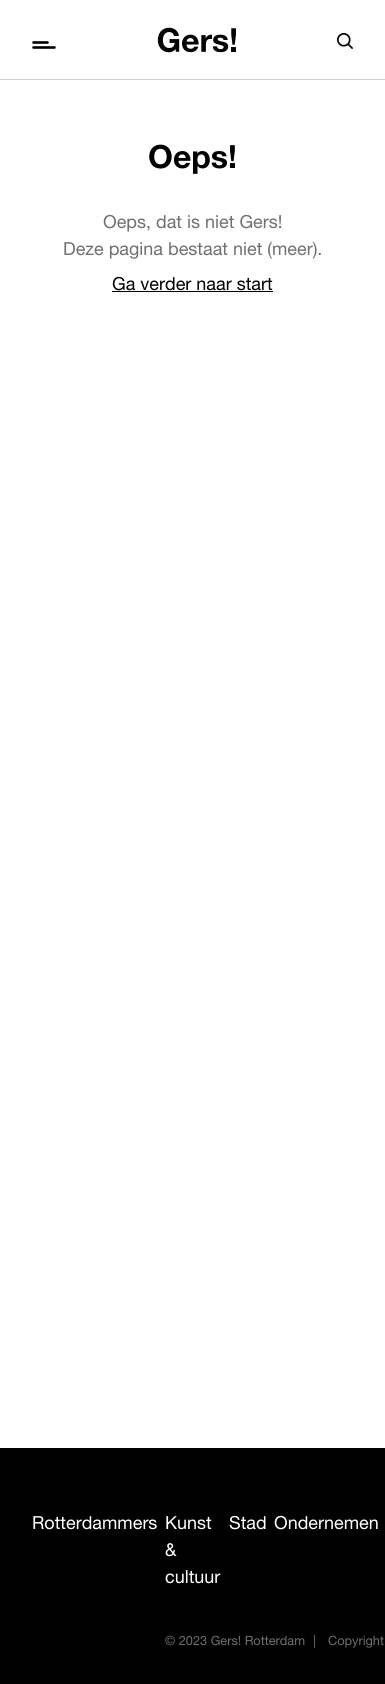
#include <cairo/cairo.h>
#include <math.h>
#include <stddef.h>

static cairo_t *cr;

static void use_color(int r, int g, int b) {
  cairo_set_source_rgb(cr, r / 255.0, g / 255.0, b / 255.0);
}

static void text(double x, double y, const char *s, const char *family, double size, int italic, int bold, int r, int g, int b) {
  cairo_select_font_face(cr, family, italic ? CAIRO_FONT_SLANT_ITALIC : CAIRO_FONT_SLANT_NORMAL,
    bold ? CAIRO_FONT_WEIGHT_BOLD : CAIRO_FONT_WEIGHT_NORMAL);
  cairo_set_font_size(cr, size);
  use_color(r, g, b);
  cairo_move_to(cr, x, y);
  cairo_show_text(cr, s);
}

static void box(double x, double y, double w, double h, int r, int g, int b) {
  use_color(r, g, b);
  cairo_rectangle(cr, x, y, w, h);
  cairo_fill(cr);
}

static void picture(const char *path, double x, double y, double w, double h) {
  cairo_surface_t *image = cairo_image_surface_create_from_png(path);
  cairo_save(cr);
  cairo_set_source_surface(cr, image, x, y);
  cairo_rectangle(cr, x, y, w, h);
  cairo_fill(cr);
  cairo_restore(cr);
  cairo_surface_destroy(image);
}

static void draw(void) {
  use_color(255, 255, 255);
  cairo_paint(cr);
  box(0, 79, 385, 1, 208, 208, 208);
  cairo_new_path(cr);
  cairo_move_to(cr, 33.5, 42.5);
  cairo_line_to(cr, 47.5, 42.5);
  cairo_move_to(cr, 33.5, 47.5);
  cairo_line_to(cr, 54.5, 47.5);
  use_color(0, 0, 0);
  cairo_set_line_width(cr, 2.6);
  cairo_set_line_cap(cr, CAIRO_LINE_CAP_ROUND);
  cairo_stroke(cr);
  picture("img_01.png", 157, 27, 79, 26);
  picture("img_02.png", 337, 33, 16, 16);
  box(112, 291, 161, 1, 0, 0, 0);
  box(0, 1448, 385, 236, 0, 0, 0);
  text(148, 168, "Oeps!", "Helvetica Neue", 32, 0, 1, 0, 0, 0);
  text(103, 228, "Oeps, dat is niet Gers!", "Helvetica Neue", 18, 0, 0, 112, 112, 112);
  text(63, 255, "Deze pagina bestaat niet (meer).", "Helvetica Neue", 18, 0, 0, 112, 112, 112);
  text(112, 290, "Ga verder naar start", "Helvetica Neue", 18, 0, 0, 0, 0, 0);
  text(32, 1529, "Rotterdammers", "Helvetica Neue", 18, 0, 0, 255, 255, 255);
  text(165, 1529, "Kunst", "Helvetica Neue", 18, 0, 0, 255, 255, 255);
  text(165, 1556, "&", "Helvetica Neue", 18, 0, 0, 255, 255, 255);
  text(165, 1583, "cultuur", "Helvetica Neue", 18, 0, 0, 255, 255, 255);
  text(229, 1529, "Stad", "Helvetica Neue", 18, 0, 0, 255, 255, 255);
  text(274, 1529, "Ondernemen", "Helvetica Neue", 18, 0, 0, 255, 255, 255);
  text(165, 1645, "© 2023 Gers! Rotterdam", "Helvetica Neue", 12.75, 0, 0, 112, 112, 112);
  text(313, 1645, "|", "Helvetica Neue", 12.75, 0, 0, 112, 112, 112);
  text(328, 1645, "Copyright", "Helvetica Neue", 12.75, 0, 0, 112, 112, 112);
}

int main(void) {
  cairo_surface_t *surface = cairo_image_surface_create(CAIRO_FORMAT_RGB24, 385, 1684);
  cr = cairo_create(surface);
  cairo_font_options_t *options = cairo_font_options_create();
  cairo_font_options_set_hint_metrics(options, CAIRO_HINT_METRICS_OFF);
  cairo_font_options_set_hint_style(options, CAIRO_HINT_STYLE_NONE);
  cairo_set_font_options(cr, options);
  cairo_set_miter_limit(cr, 4);
  draw();
  cairo_surface_write_to_png(surface, "out.png");
  cairo_font_options_destroy(options);
  cairo_destroy(cr);
  cairo_surface_destroy(surface);
  return 0;
}
